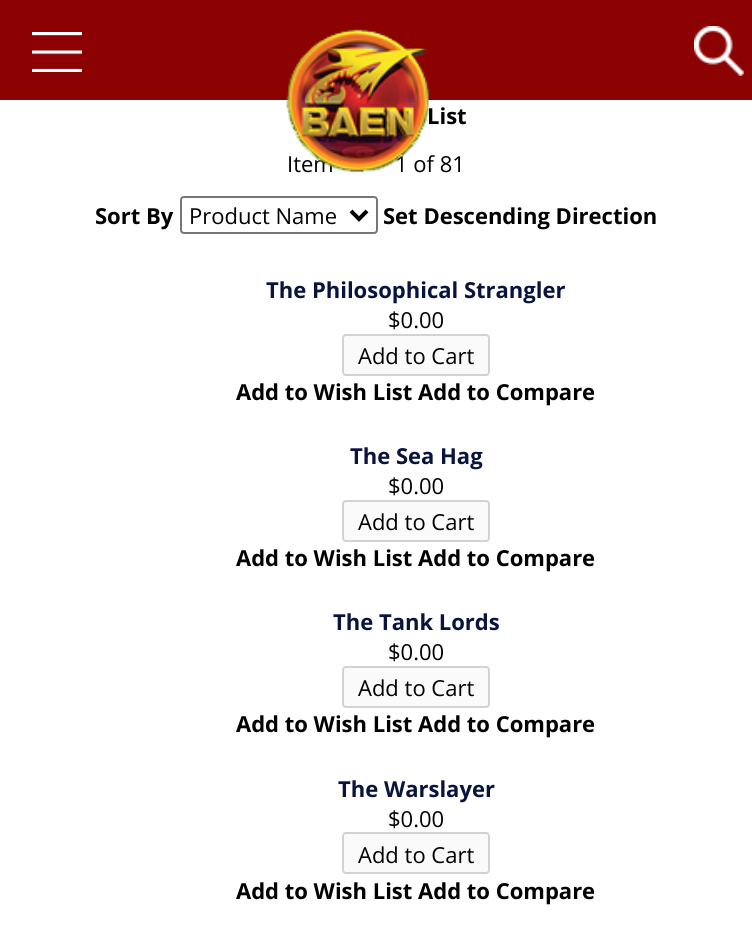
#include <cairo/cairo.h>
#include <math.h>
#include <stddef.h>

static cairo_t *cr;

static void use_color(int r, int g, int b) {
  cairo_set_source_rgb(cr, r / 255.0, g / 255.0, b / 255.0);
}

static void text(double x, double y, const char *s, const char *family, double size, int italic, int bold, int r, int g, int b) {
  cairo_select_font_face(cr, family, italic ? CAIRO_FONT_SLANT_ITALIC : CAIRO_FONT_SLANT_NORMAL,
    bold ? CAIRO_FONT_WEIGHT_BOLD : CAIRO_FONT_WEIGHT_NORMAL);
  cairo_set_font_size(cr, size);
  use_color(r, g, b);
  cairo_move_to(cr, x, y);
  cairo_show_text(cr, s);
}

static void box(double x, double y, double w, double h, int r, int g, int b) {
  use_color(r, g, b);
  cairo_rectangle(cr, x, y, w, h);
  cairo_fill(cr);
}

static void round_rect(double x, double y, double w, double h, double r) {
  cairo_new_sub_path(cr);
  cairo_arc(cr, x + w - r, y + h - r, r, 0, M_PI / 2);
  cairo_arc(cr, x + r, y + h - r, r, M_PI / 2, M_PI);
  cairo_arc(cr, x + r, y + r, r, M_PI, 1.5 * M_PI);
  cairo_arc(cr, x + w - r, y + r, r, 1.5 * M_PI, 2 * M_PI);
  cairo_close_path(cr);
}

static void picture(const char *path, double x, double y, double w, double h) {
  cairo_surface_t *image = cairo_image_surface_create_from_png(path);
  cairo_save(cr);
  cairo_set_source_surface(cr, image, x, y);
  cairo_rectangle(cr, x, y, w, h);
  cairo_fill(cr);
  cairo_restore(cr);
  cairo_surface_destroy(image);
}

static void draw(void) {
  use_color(255, 255, 255);
  cairo_paint(cr);
  box(0, 0, 752, 100, 140, 2, 2);
  picture("img_01.png", 32, 32, 50, 40);
  picture("img_03.png", 694, 26, 50, 50);
  round_rect(181, 197, 196, 36, 3);
  use_color(118, 118, 118);
  cairo_stroke(cr);
  cairo_new_path(cr);
  cairo_move_to(cr, 351, 211);
  cairo_line_to(cr, 359, 219);
  cairo_line_to(cr, 367, 211);
  use_color(0, 0, 0);
  cairo_set_line_width(cr, 4);
  cairo_stroke(cr);
  use_color(250, 250, 250);
  round_rect(343, 335, 146, 40, 3);
  cairo_fill_preserve(cr);
  use_color(210, 210, 210);
  cairo_set_line_width(cr, 2);
  cairo_stroke(cr);
  use_color(250, 250, 250);
  round_rect(343, 501, 146, 40, 3);
  cairo_fill_preserve(cr);
  use_color(210, 210, 210);
  cairo_stroke(cr);
  use_color(250, 250, 250);
  round_rect(343, 667, 146, 40, 3);
  cairo_fill_preserve(cr);
  use_color(210, 210, 210);
  cairo_stroke(cr);
  use_color(250, 250, 250);
  round_rect(343, 833, 146, 40, 3);
  cairo_fill_preserve(cr);
  use_color(210, 210, 210);
  cairo_stroke(cr);
  text(427, 124, "List", "Open Sans", 22, 0, 1, 0, 0, 0);
  text(287, 172, "Item", "Open Sans", 22, 0, 0, 0, 0, 0);
  text(395, 172, "1 of 81", "Open Sans", 22, 0, 0, 0, 0, 0);
  picture("img_02.png", 286, 29, 143, 145);
  text(95, 224, "Sort By", "Open Sans", 22, 0, 1, 0, 0, 0);
  text(189, 224, "Product Name", "Open Sans", 22, 0, 0, 0, 0, 0);
  text(383, 224, "Set Descending Direction", "Open Sans", 22, 0, 1, 0, 0, 0);
  text(266, 298, "The Philosophical Strangler", "Open Sans", 22, 0, 1, 8, 20, 62);
  text(388, 328, "$0.00", "Open Sans", 22, 0, 0, 0, 0, 0);
  text(358, 364, "Add to Cart", "Open Sans", 22, 0, 0, 0, 0, 0);
  text(236, 400, "Add to Wish List Add to Compare", "Open Sans", 22, 0, 1, 0, 0, 0);
  text(350, 464, "The Sea Hag", "Open Sans", 22, 0, 1, 8, 20, 62);
  text(388, 494, "$0.00", "Open Sans", 22, 0, 0, 0, 0, 0);
  text(358, 530, "Add to Cart", "Open Sans", 22, 0, 0, 0, 0, 0);
  text(236, 566, "Add to Wish List Add to Compare", "Open Sans", 22, 0, 1, 0, 0, 0);
  text(333, 630, "The Tank Lords", "Open Sans", 22, 0, 1, 8, 20, 62);
  text(388, 660, "$0.00", "Open Sans", 22, 0, 0, 0, 0, 0);
  text(358, 696, "Add to Cart", "Open Sans", 22, 0, 0, 0, 0, 0);
  text(236, 732, "Add to Wish List Add to Compare", "Open Sans", 22, 0, 1, 0, 0, 0);
  text(338, 797, "The Warslayer", "Open Sans", 22, 0, 1, 8, 20, 62);
  text(388, 827, "$0.00", "Open Sans", 22, 0, 0, 0, 0, 0);
  text(358, 863, "Add to Cart", "Open Sans", 22, 0, 0, 0, 0, 0);
  text(236, 899, "Add to Wish List Add to Compare", "Open Sans", 22, 0, 1, 0, 0, 0);
}

int main(void) {
  cairo_surface_t *surface = cairo_image_surface_create(CAIRO_FORMAT_RGB24, 752, 925);
  cr = cairo_create(surface);
  cairo_font_options_t *options = cairo_font_options_create();
  cairo_font_options_set_hint_metrics(options, CAIRO_HINT_METRICS_OFF);
  cairo_font_options_set_hint_style(options, CAIRO_HINT_STYLE_NONE);
  cairo_set_font_options(cr, options);
  cairo_set_miter_limit(cr, 4);
  draw();
  cairo_surface_write_to_png(surface, "out.png");
  cairo_font_options_destroy(options);
  cairo_destroy(cr);
  cairo_surface_destroy(surface);
  return 0;
}
